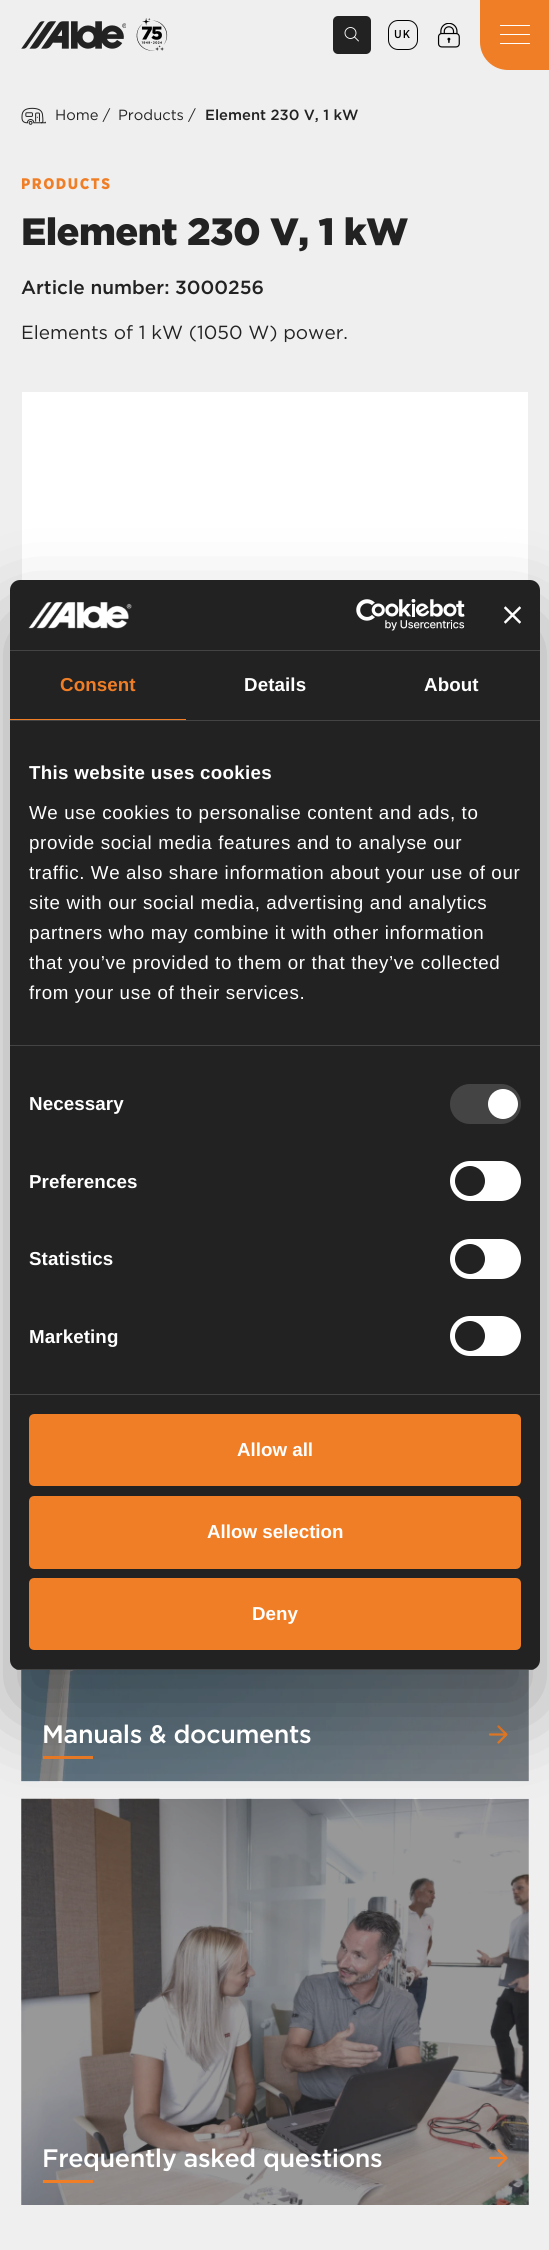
#include <cairo/cairo.h>
#include <math.h>
#include <stddef.h>

static cairo_t *cr;

static void use_color(int r, int g, int b) {
  cairo_set_source_rgb(cr, r / 255.0, g / 255.0, b / 255.0);
}

static void text(double x, double y, const char *s, const char *family, double size, int italic, int bold, int r, int g, int b) {
  cairo_select_font_face(cr, family, italic ? CAIRO_FONT_SLANT_ITALIC : CAIRO_FONT_SLANT_NORMAL,
    bold ? CAIRO_FONT_WEIGHT_BOLD : CAIRO_FONT_WEIGHT_NORMAL);
  cairo_set_font_size(cr, size);
  use_color(r, g, b);
  cairo_move_to(cr, x, y);
  cairo_show_text(cr, s);
}

static void spaced_text(double x, double y, const char *s, double letter, double word) {
  cairo_move_to(cr, x, y);
  while (*s) {
    char ch[5] = {0};
    int n = 0;
    do ch[n++] = *s++; while ((*s & 0xC0) == 0x80);
    cairo_show_text(cr, ch);
    cairo_rel_move_to(cr, letter + word * (*ch == ' '), 0);
  }
}

static void box(double x, double y, double w, double h, int r, int g, int b) {
  use_color(r, g, b);
  cairo_rectangle(cr, x, y, w, h);
  cairo_fill(cr);
}

static void round_rect(double x, double y, double w, double h, double r) {
  cairo_new_sub_path(cr);
  cairo_arc(cr, x + w - r, y + h - r, r, 0, M_PI / 2);
  cairo_arc(cr, x + r, y + h - r, r, M_PI / 2, M_PI);
  cairo_arc(cr, x + r, y + r, r, M_PI, 1.5 * M_PI);
  cairo_arc(cr, x + w - r, y + r, r, 1.5 * M_PI, 2 * M_PI);
  cairo_close_path(cr);
}

static void shadow(double x, double y, double w, double h, double r, double blur, double alpha) {
  cairo_push_group_with_content(cr, CAIRO_CONTENT_ALPHA);
  cairo_set_operator(cr, CAIRO_OPERATOR_SOURCE);
  for (int i = 15; i >= -15 && fmin(w, h) + blur * i / 3 > 0; i -= 2) {
    double e = blur * i / 6;
    cairo_set_source_rgba(cr, 0, 0, 0, alpha * erfc((i - 1) / 8.5) / 2);
    round_rect(x - e, y - e, w + 2 * e, h + 2 * e, fmax(0, fmin(r + e + blur * .6, fmin(w, h) / 2 + e)));
    cairo_fill(cr);
  }
  cairo_pattern_t *soft = cairo_pop_group(cr);
  cairo_mask(cr, soft);
  cairo_pattern_destroy(soft);
}

static void picture(const char *path, double x, double y, double w, double h) {
  cairo_surface_t *image = cairo_image_surface_create_from_png(path);
  cairo_save(cr);
  cairo_set_source_surface(cr, image, x, y);
  cairo_rectangle(cr, x, y, w, h);
  cairo_fill(cr);
  cairo_restore(cr);
  cairo_surface_destroy(image);
}

static void draw(void) {
  use_color(239, 239, 239);
  cairo_paint(cr);
  picture("img_01.png", 21, 21, 105, 28);
  picture("img_02.png", 136, 18, 32, 33);
  use_color(34, 34, 34);
  round_rect(333, 16, 38, 38, 5);
  cairo_fill(cr);
  cairo_arc(cr, 350.5, 33, 5.5, 0, 2 * M_PI);
  use_color(255, 255, 255);
  cairo_set_line_width(cr, 0.9);
  cairo_stroke(cr);
  cairo_new_path(cr);
  cairo_move_to(cr, 354.5, 37);
  cairo_line_to(cr, 358.5, 41);
  cairo_set_line_cap(cr, CAIRO_LINE_CAP_ROUND);
  cairo_stroke(cr);
  round_rect(388.5, 20.5, 29, 29, 9.5);
  use_color(0, 0, 0);
  cairo_set_line_width(cr, 1);
  cairo_set_line_cap(cr, CAIRO_LINE_CAP_BUTT);
  cairo_stroke(cr);
  picture("img_03.png", 437, 23, 23, 25);
  use_color(240, 126, 38);
  cairo_new_path(cr);
  cairo_move_to(cr, 480, 0);
  cairo_line_to(cr, 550, 0);
  cairo_line_to(cr, 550, 70);
  cairo_line_to(cr, 508, 70);
  cairo_curve_to(cr, 492.5, 70, 480, 57.5, 480, 42);
  cairo_close_path(cr);
  cairo_fill(cr);
  box(500, 25, 30, 1, 255, 255, 255);
  box(500, 34, 30, 1, 255, 255, 255);
  box(500, 43, 30, 1, 255, 255, 255);
  picture("img_04.png", 21, 107, 25, 18);
  box(22, 392, 506, 188, 255, 255, 255);
  picture("img_05.png", 21, 1670, 508, 112);
  box(43, 1756, 50, 3, 240, 126, 38);
  cairo_new_path(cr);
  cairo_move_to(cr, 490, 1734.5);
  cairo_line_to(cr, 506.5, 1734.5);
  cairo_move_to(cr, 498.5, 1726.5);
  cairo_line_to(cr, 506.5, 1734.5);
  cairo_line_to(cr, 498.5, 1742.5);
  cairo_set_line_width(cr, 2.2);
  cairo_set_line_cap(cr, CAIRO_LINE_CAP_ROUND);
  cairo_set_line_join(cr, CAIRO_LINE_JOIN_ROUND);
  cairo_stroke(cr);
  picture("img_06.png", 21, 1798, 508, 407);
  box(43, 2180, 50, 3, 240, 126, 38);
  cairo_new_path(cr);
  cairo_move_to(cr, 490, 2158);
  cairo_line_to(cr, 506.5, 2158);
  cairo_move_to(cr, 498.5, 2150.5);
  cairo_line_to(cr, 506.5, 2158);
  cairo_line_to(cr, 498.5, 2166);
  cairo_stroke(cr);
  use_color(0, 0, 0);
  shadow(10, 620, 530, 1090, 10, 42.5, 0.3);
  use_color(34, 34, 34);
  round_rect(10, 580, 530, 1090, 10);
  cairo_fill(cr);
  box(10, 650, 530, 1, 68, 68, 68);
  picture("img_07.png", 28, 602, 104, 27);
  picture("img_08.png", 356, 599, 109, 32);
  picture("img_09.png", 504, 606, 17, 18);
  box(10, 720, 530, 1, 68, 68, 68);
  box(10, 719, 176, 1, 240, 126, 38);
  box(10, 1045, 530, 1, 68, 68, 68);
  box(10, 1394, 530, 1, 68, 68, 68);
  round_rect(450, 1084, 71, 40, 20);
  cairo_fill(cr);
  use_color(255, 255, 255);
  cairo_arc(cr, 503, 1104, 15, 0, 2 * M_PI);
  cairo_fill(cr);
  round_rect(450, 1161, 71, 40, 20);
  cairo_fill(cr);
  use_color(34, 34, 34);
  cairo_arc(cr, 470, 1181, 15, 0, 2 * M_PI);
  cairo_fill(cr);
  use_color(255, 255, 255);
  round_rect(450, 1239, 71, 40, 20);
  cairo_fill(cr);
  use_color(34, 34, 34);
  cairo_arc(cr, 470, 1259, 15, 0, 2 * M_PI);
  cairo_fill(cr);
  use_color(255, 255, 255);
  round_rect(450, 1316, 71, 40, 20);
  cairo_fill(cr);
  use_color(34, 34, 34);
  cairo_arc(cr, 470, 1336, 15, 0, 2 * M_PI);
  cairo_fill(cr);
  cairo_save(cr);
  round_rect(10, 580, 530, 1090, 10);
  cairo_clip(cr);
  box(10, 1669, 530, 1, 68, 68, 68);
  cairo_restore(cr);
  use_color(240, 126, 38);
  round_rect(30.5, 1415.5, 489, 69, 3.5);
  cairo_fill_preserve(cr);
  cairo_set_line_width(cr, 3);
  cairo_set_line_cap(cr, CAIRO_LINE_CAP_BUTT);
  cairo_set_line_join(cr, CAIRO_LINE_JOIN_MITER);
  cairo_stroke(cr);
  round_rect(30.5, 1497.5, 489, 70, 3.5);
  cairo_fill_preserve(cr);
  cairo_stroke(cr);
  round_rect(30.5, 1579.5, 489, 69, 3.5);
  cairo_fill_preserve(cr);
  cairo_stroke(cr);
  cairo_select_font_face(cr, "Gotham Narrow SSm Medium", CAIRO_FONT_SLANT_NORMAL, CAIRO_FONT_WEIGHT_NORMAL);
  cairo_set_font_size(cr, 11);
  use_color(0, 0, 0);
  spaced_text(394, 38, "UK", 1, 0);
  text(55, 120, "Home /", "Gotham", 14.75, 0, 0, 34, 34, 34);
  text(118, 120, "Products /", "Gotham", 14.75, 0, 0, 34, 34, 34);
  text(205, 120, "Element 230 V, 1 kW", "Gotham Medium", 14.75, 0, 0, 34, 34, 34);
  cairo_select_font_face(cr, "Gotham Narrow SSm Black", CAIRO_FONT_SLANT_NORMAL, CAIRO_FONT_WEIGHT_NORMAL);
  use_color(240, 126, 38);
  spaced_text(21, 189, "PRODUCTS", 1.5, 0);
  cairo_select_font_face(cr, "Gotham Black", CAIRO_FONT_SLANT_NORMAL, CAIRO_FONT_WEIGHT_NORMAL);
  cairo_set_font_size(cr, 38);
  use_color(34, 34, 34);
  spaced_text(21, 245, "Element 230 V, 1 kW", -0.6, 0);
  text(21, 294, "Article number: 3000256", "Gotham Medium", 19, 0, 0, 34, 34, 34);
  text(21, 339, "Elements of 1 kW (1050 W) power.", "Gotham", 19, 0, 0, 34, 34, 34);
  cairo_select_font_face(cr, "Gotham Medium", CAIRO_FONT_SLANT_NORMAL, CAIRO_FONT_WEIGHT_NORMAL);
  cairo_set_font_size(cr, 25.25);
  use_color(255, 255, 255);
  spaced_text(42, 1743, "Manuals & documents", -0.4, 0);
  spaced_text(42, 2167, "Frequently asked questions", -0.4, 0);
  cairo_select_font_face(cr, "Liberation Sans", CAIRO_FONT_SLANT_NORMAL, CAIRO_FONT_WEIGHT_BOLD);
  cairo_set_font_size(cr, 18.75);
  use_color(240, 126, 38);
  spaced_text(60, 691, "Consent", 0.1, 0);
  use_color(255, 255, 255);
  spaced_text(244, 691, "Details", 0.1, 0);
  spaced_text(424, 691, "About", 0.1, 0);
  spaced_text(29, 779, "This website uses cookies", 0.3, 0);
  cairo_select_font_face(cr, "Liberation Sans", CAIRO_FONT_SLANT_NORMAL, CAIRO_FONT_WEIGHT_NORMAL);
  spaced_text(29, 819, "We use cookies to personalise content and ads, to", 0.62, 0);
  spaced_text(29, 849, "provide social media features and to analyse our", 0.62, 0);
  spaced_text(29, 879, "traffic. We also share information about your use of our", 0.62, 0);
  spaced_text(29, 909, "site with our social media, advertising and analytics", 0.62, 0);
  spaced_text(29, 939, "partners who may combine it with other information", 0.62, 0);
  spaced_text(29, 969, "that you’ve provided to them or that they’ve collected", 0.62, 0);
  spaced_text(29, 999, "from your use of their services.", 0.62, 0);
  cairo_select_font_face(cr, "Liberation Sans", CAIRO_FONT_SLANT_NORMAL, CAIRO_FONT_WEIGHT_BOLD);
  spaced_text(29, 1110, "Necessary", 0.1, 0);
  spaced_text(29, 1188, "Preferences", 0.1, 0);
  spaced_text(29, 1265, "Statistics", 0.1, 0);
  spaced_text(29, 1343, "Marketing", 0.1, 0);
  text(237, 1456, "Allow all", "Liberation Sans", 18.75, 0, 1, 255, 255, 255);
  text(207, 1538, "Allow selection", "Liberation Sans", 18.75, 0, 1, 255, 255, 255);
  text(252, 1620, "Deny", "Liberation Sans", 18.75, 0, 1, 255, 255, 255);
}

int main(void) {
  cairo_surface_t *surface = cairo_image_surface_create(CAIRO_FORMAT_RGB24, 549, 2250);
  cr = cairo_create(surface);
  cairo_font_options_t *options = cairo_font_options_create();
  cairo_font_options_set_hint_metrics(options, CAIRO_HINT_METRICS_OFF);
  cairo_font_options_set_hint_style(options, CAIRO_HINT_STYLE_NONE);
  cairo_set_font_options(cr, options);
  cairo_set_miter_limit(cr, 4);
  draw();
  cairo_surface_write_to_png(surface, "out.png");
  cairo_font_options_destroy(options);
  cairo_destroy(cr);
  cairo_surface_destroy(surface);
  return 0;
}
